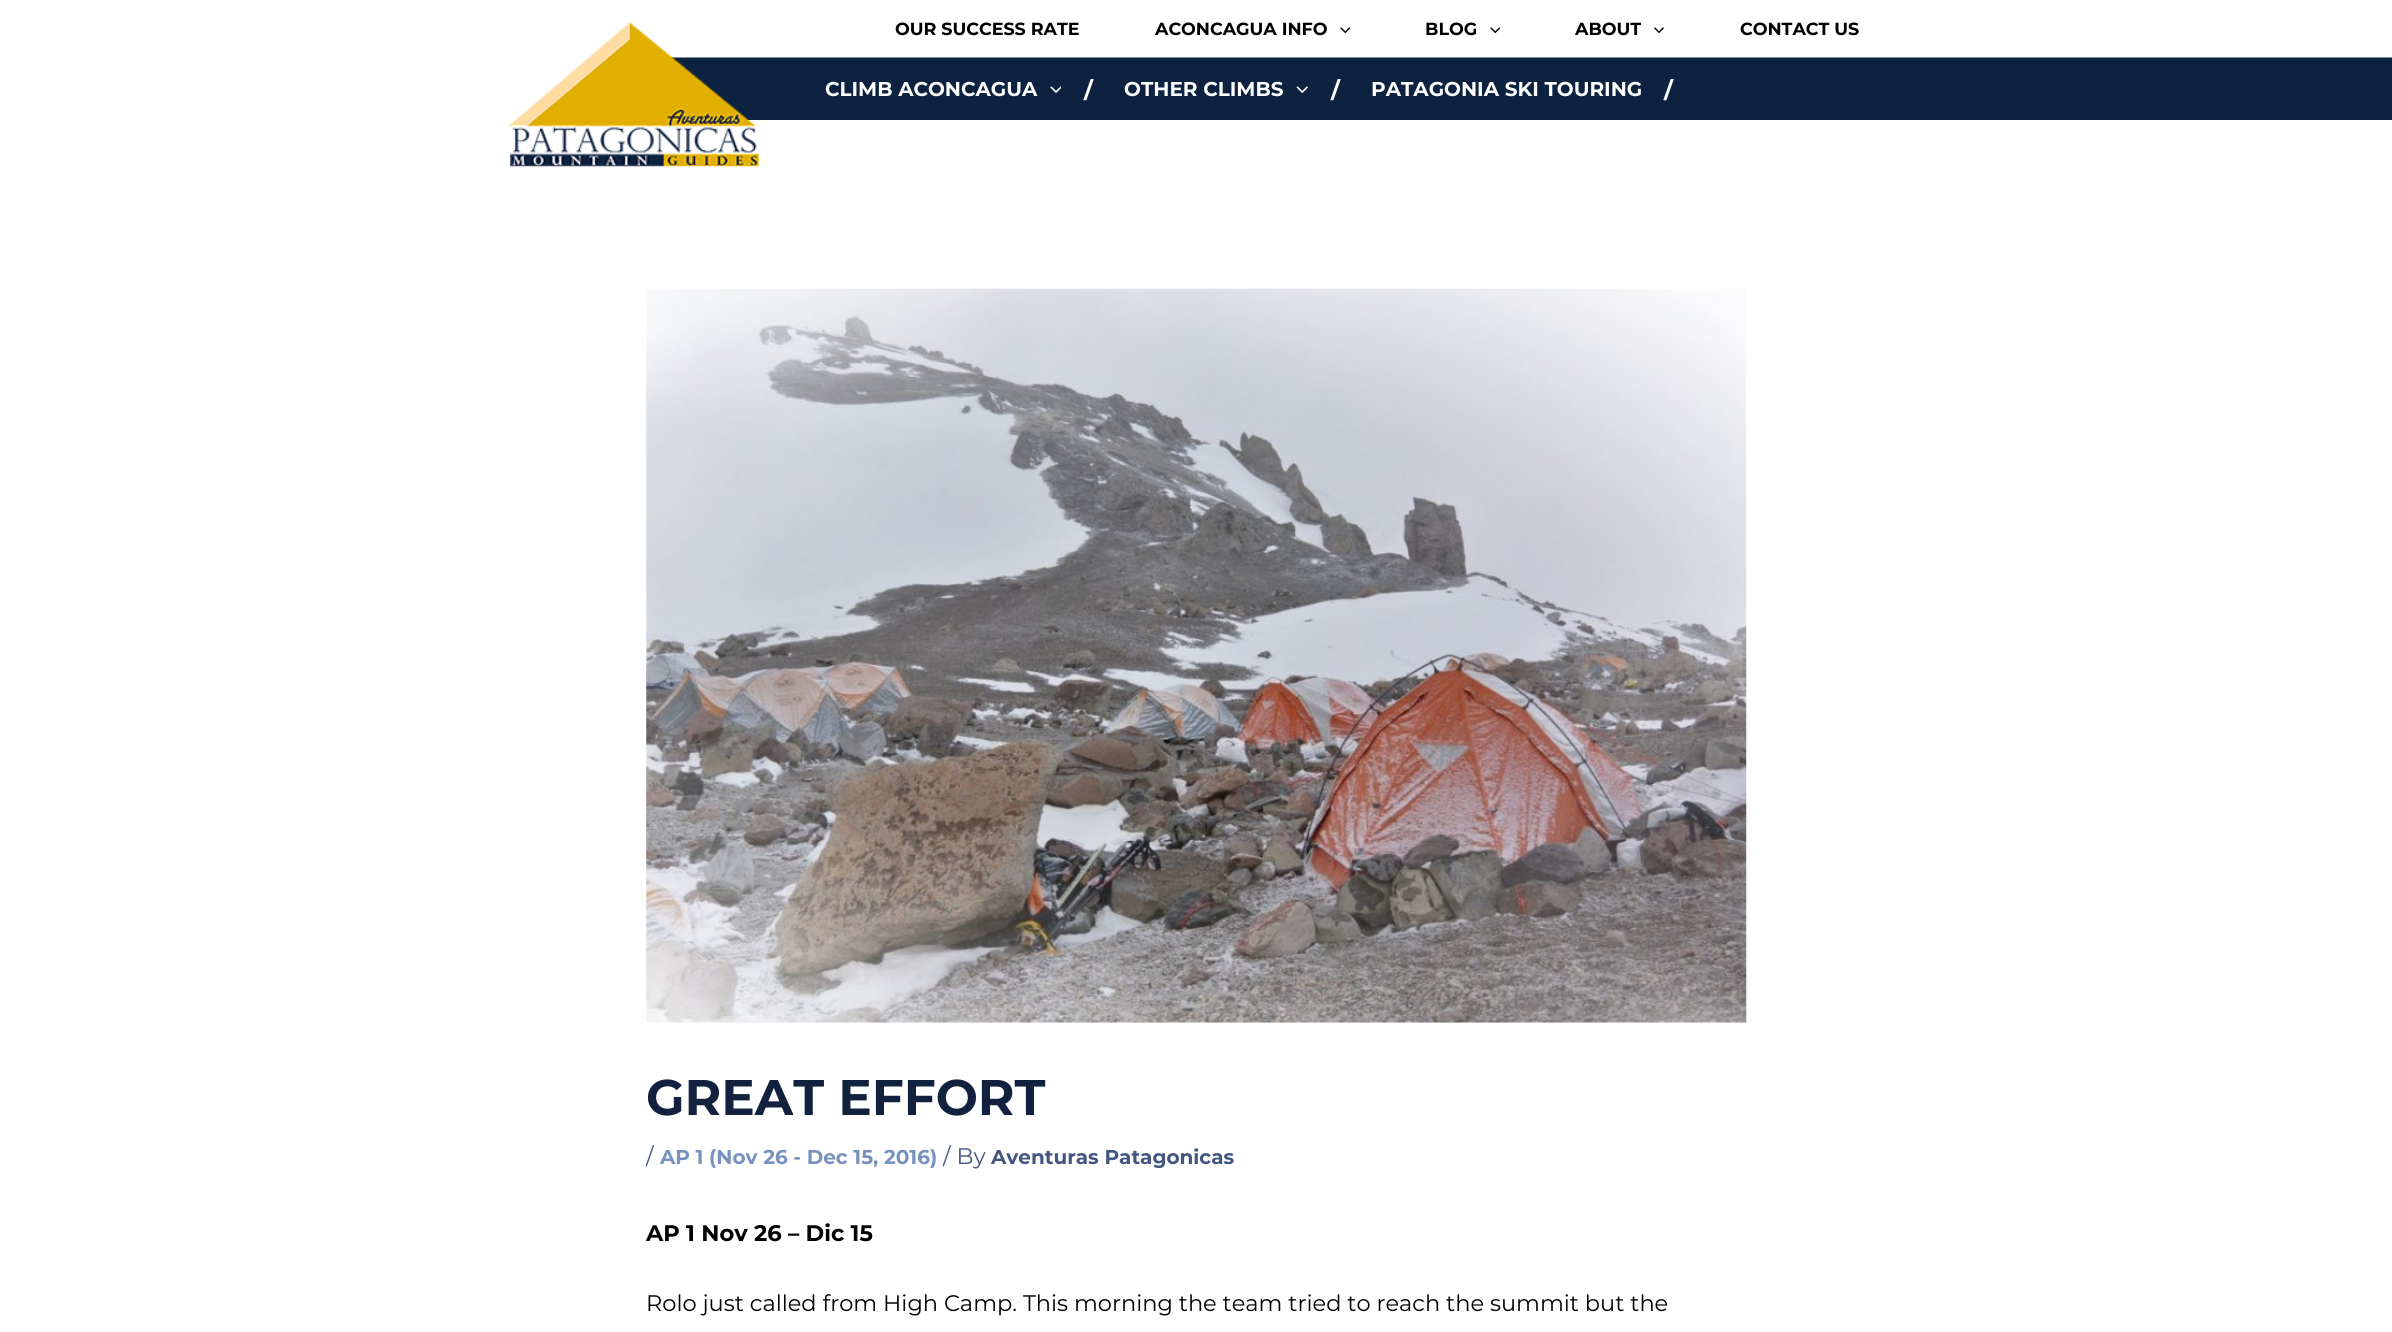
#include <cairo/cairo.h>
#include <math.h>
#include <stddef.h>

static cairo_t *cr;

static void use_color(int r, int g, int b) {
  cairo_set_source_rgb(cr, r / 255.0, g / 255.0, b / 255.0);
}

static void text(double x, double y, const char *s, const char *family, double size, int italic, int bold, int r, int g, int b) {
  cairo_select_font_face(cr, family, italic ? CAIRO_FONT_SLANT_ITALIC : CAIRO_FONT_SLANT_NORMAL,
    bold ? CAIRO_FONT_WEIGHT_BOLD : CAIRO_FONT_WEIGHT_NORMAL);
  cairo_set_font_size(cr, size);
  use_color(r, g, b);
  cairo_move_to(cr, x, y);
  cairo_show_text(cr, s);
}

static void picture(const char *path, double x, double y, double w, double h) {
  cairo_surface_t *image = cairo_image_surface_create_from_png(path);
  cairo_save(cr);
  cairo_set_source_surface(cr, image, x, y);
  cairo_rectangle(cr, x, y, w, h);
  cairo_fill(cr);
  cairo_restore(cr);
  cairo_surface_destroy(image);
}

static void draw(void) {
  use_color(255, 255, 255);
  cairo_paint(cr);
  picture("img_04.png", 670, 57, 1722, 63);
  picture("img_01.png", 508, 22, 251, 145);
  picture("img_02.png", 1340, 27, 10, 7);
  picture("img_02.png", 1490, 27, 10, 7);
  picture("img_03.png", 1654, 27, 10, 7);
  picture("img_05.png", 1050, 86, 11, 8);
  picture("img_06.png", 1296, 86, 12, 8);
  picture("img_07.png", 646, 288, 1101, 735);
  text(895, 35, "OUR SUCCESS RATE", "Montserrat", 17.5, 0, 1, 0, 0, 0);
  text(1155, 35, "ACONCAGUA INFO", "Montserrat", 17.5, 0, 1, 0, 0, 0);
  text(1425, 35, "BLOG", "Montserrat", 17.5, 0, 1, 0, 0, 0);
  text(1575, 35, "ABOUT", "Montserrat", 17.5, 0, 1, 0, 0, 0);
  text(1740, 35, "CONTACT US", "Montserrat", 17.5, 0, 1, 0, 0, 0);
  text(825, 96, "CLIMB ACONCAGUA", "Montserrat", 20, 0, 1, 255, 255, 255);
  text(1084, 98, "/", "Montserrat", 22.5, 0, 1, 255, 255, 255);
  text(1124, 96, "OTHER CLIMBS", "Montserrat", 20, 0, 1, 255, 255, 255);
  text(1331, 98, "/", "Montserrat", 22.5, 0, 1, 255, 255, 255);
  text(1371, 96, "PATAGONIA SKI TOURING", "Montserrat", 20, 0, 1, 255, 255, 255);
  text(1664, 98, "/", "Montserrat", 22.5, 0, 1, 255, 255, 255);
  text(646, 1115, "GREAT EFFORT", "Montserrat", 50, 0, 1, 18, 34, 62);
  text(646, 1164, "/", "Montserrat", 22.5, 0, 0, 66, 86, 128);
  text(660, 1164, "AP 1 (Nov 26 - Dec 15, 2016)", "Montserrat", 20, 0, 1, 119, 146, 192);
  text(943, 1164, "/ By", "Montserrat", 22.5, 0, 0, 66, 86, 128);
  text(991, 1164, "Aventuras Patagonicas", "Montserrat", 20, 0, 1, 66, 86, 128);
  text(646, 1241, "AP 1 Nov 26 – Dic 15", "Montserrat", 22.5, 0, 1, 0, 0, 0);
  text(646, 1311, "Rolo just called from High Camp. This morning the team tried to reach the summit but the", "Montserrat", 22.5, 0, 0, 0, 0, 0);
}

int main(void) {
  cairo_surface_t *surface = cairo_image_surface_create(CAIRO_FORMAT_RGB24, 2392, 1332);
  cr = cairo_create(surface);
  cairo_font_options_t *options = cairo_font_options_create();
  cairo_font_options_set_hint_metrics(options, CAIRO_HINT_METRICS_OFF);
  cairo_font_options_set_hint_style(options, CAIRO_HINT_STYLE_NONE);
  cairo_set_font_options(cr, options);
  cairo_set_miter_limit(cr, 4);
  draw();
  cairo_surface_write_to_png(surface, "out.png");
  cairo_font_options_destroy(options);
  cairo_destroy(cr);
  cairo_surface_destroy(surface);
  return 0;
}
